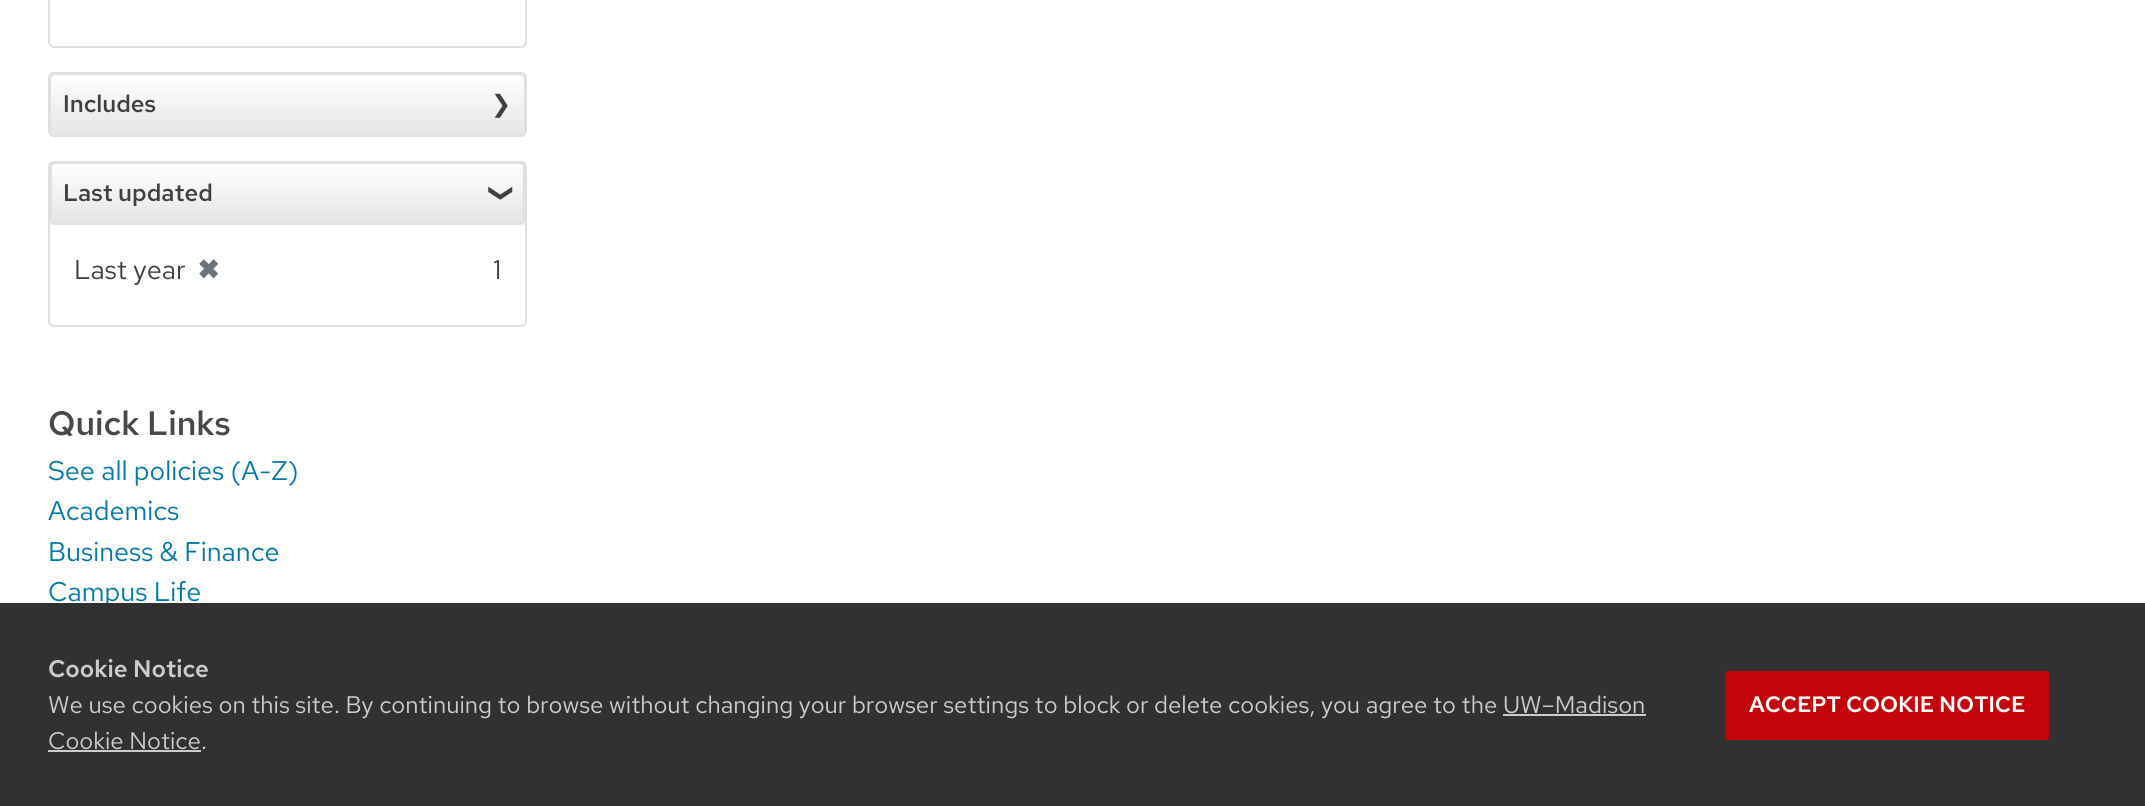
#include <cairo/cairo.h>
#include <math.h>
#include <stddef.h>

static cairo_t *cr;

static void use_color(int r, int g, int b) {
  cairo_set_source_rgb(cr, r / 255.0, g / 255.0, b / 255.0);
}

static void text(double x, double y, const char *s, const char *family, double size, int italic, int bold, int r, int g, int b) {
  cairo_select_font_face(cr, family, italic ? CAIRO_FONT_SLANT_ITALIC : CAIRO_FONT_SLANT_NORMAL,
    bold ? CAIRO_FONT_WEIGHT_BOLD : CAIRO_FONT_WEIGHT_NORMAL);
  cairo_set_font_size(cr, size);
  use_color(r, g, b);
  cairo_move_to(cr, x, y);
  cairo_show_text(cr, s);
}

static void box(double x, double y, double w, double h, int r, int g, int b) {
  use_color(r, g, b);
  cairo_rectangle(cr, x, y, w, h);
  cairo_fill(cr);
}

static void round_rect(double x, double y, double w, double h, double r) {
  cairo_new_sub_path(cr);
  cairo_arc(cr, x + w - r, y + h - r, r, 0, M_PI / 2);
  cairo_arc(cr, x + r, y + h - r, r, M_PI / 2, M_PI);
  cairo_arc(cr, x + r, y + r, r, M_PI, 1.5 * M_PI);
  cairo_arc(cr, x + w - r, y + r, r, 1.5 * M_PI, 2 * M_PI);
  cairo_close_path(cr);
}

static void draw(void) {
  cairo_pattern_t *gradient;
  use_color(255, 255, 255);
  cairo_paint(cr);
  round_rect(49, -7, 477, 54, 5);
  use_color(223, 223, 223);
  cairo_stroke(cr);
  round_rect(49, 73, 477, 63, 5);
  cairo_stroke(cr);
  cairo_set_source_rgba(cr, 0, 0, 0, 0.03);
  cairo_rectangle(cr, 50, 74, 475, 61);
  cairo_fill(cr);
  cairo_save(cr);
  round_rect(50, 74, 475, 61, 6);
  cairo_clip(cr);
  gradient = cairo_pattern_create_linear(287, 75, 287, 135);
  cairo_pattern_add_color_stop_rgba(gradient, 0, 1, 1, 1, 1);
  cairo_pattern_add_color_stop_rgba(gradient, 1, 0.898, 0.898, 0.898, 1);
  cairo_set_source(cr, gradient);
  cairo_pattern_destroy(gradient);
  cairo_new_path(cr);
  cairo_move_to(cr, 50, 75);
  cairo_line_to(cr, 525, 75);
  cairo_line_to(cr, 525, 129);
  cairo_curve_to(cr, 525, 132.5, 522.5, 135, 519, 135);
  cairo_line_to(cr, 56, 135);
  cairo_curve_to(cr, 52.5, 135, 50, 132.5, 50, 129);
  cairo_close_path(cr);
  cairo_fill(cr);
  cairo_restore(cr);
  use_color(224, 224, 224);
  cairo_set_fill_rule(cr, CAIRO_FILL_RULE_EVEN_ODD);
  cairo_new_path(cr);
  cairo_move_to(cr, 56, 74);
  cairo_line_to(cr, 519, 74);
  cairo_curve_to(cr, 522, 74, 525, 76, 525, 80);
  cairo_line_to(cr, 525, 129);
  cairo_curve_to(cr, 525, 132, 522, 135, 519, 135);
  cairo_line_to(cr, 56, 135);
  cairo_curve_to(cr, 52, 135, 50, 132, 50, 129);
  cairo_line_to(cr, 50, 80);
  cairo_curve_to(cr, 50, 76, 52, 74, 56, 74);
  cairo_close_path(cr);
  cairo_move_to(cr, 56, 75);
  cairo_line_to(cr, 519, 75);
  cairo_curve_to(cr, 521, 75, 524, 77, 524, 80);
  cairo_line_to(cr, 524, 129);
  cairo_curve_to(cr, 524, 132, 521, 135, 519, 135);
  cairo_line_to(cr, 56, 135);
  cairo_curve_to(cr, 53, 135, 51, 132, 51, 129);
  cairo_line_to(cr, 51, 80);
  cairo_curve_to(cr, 51, 77, 53, 75, 56, 75);
  cairo_close_path(cr);
  cairo_fill(cr);
  round_rect(49, 162, 477, 164, 5);
  use_color(223, 223, 223);
  cairo_stroke(cr);
  cairo_set_source_rgba(cr, 0, 0, 0, 0.03);
  cairo_rectangle(cr, 50, 162, 475, 63);
  cairo_fill(cr);
  cairo_save(cr);
  cairo_set_fill_rule(cr, CAIRO_FILL_RULE_WINDING);
  round_rect(50, 162, 475, 63, 6);
  cairo_clip(cr);
  gradient = cairo_pattern_create_linear(287, 163, 287, 224);
  cairo_pattern_add_color_stop_rgba(gradient, 0, 1, 1, 1, 1);
  cairo_pattern_add_color_stop_rgba(gradient, 1, 0.898, 0.898, 0.898, 1);
  cairo_set_source(cr, gradient);
  cairo_pattern_destroy(gradient);
  cairo_rectangle(cr, 50, 164, 475, 60);
  cairo_fill(cr);
  cairo_restore(cr);
  round_rect(51, 163, 473, 61, 5);
  use_color(224, 224, 224);
  cairo_stroke(cr);
  text(63, 112, "Includes", "Red Hat Text Medium", 24, 0, 0, 64, 64, 64);
  text(491, 112, "❯", "DejaVu Sans", 24, 0, 0, 64, 64, 64);
  text(63, 201, "Last updated", "Red Hat Text Medium", 24, 0, 0, 64, 64, 64);
  cairo_save(cr);
  cairo_translate(cr, 494, 183);
  cairo_rotate(cr, 90 * M_PI / 180);
  text(0, 0, "❯", "DejaVu Sans", 24, 0, 0, 64, 64, 64);
  cairo_restore(cr);
  text(74, 279, "Last year", "Red Hat Text", 27, 0, 0, 64, 64, 64);
  text(197, 279, "✖", "DejaVu Sans", 27, 0, 1, 108, 117, 125);
  text(493, 279, "1", "Red Hat Text", 27, 0, 0, 64, 64, 64);
  text(48, 435, "Quick Links", "Red Hat Text Medium", 33.75, 0, 0, 73, 73, 73);
  text(48, 480, "See all policies (A-Z)", "Red Hat Text", 27, 0, 0, 4, 121, 168);
  text(48, 520, "Academics", "Red Hat Text", 27, 0, 0, 4, 121, 168);
  text(48, 561, "Business & Finance", "Red Hat Text", 27, 0, 0, 4, 121, 168);
  text(48, 601, "Campus Life", "Red Hat Text", 27, 0, 0, 4, 121, 168);
  cairo_set_source_rgba(cr, 0.157, 0.153, 0.157, 0.95);
  cairo_rectangle(cr, 0, 603, 2145, 203);
  cairo_fill(cr);
  text(48, 677, "Cookie Notice", "Red Hat Text SemiBold", 24, 0, 0, 204, 204, 204);
  text(48, 713, "We use cookies on this site. By continuing to browse without changing your browser settings to block or delete cookies, you agree to the UW–Madison", "Red Hat Text", 24, 0, 0, 204, 204, 204);
  text(48, 749, "Cookie Notice.", "Red Hat Text", 24, 0, 0, 204, 204, 204);
  box(1503, 714, 143, 2, 204, 204, 204);
  box(48, 750, 153, 2, 204, 204, 204);
  use_color(197, 5, 12);
  round_rect(1725, 671, 324, 69, 3);
  cairo_fill(cr);
  text(1749, 712, "ACCEPT COOKIE NOTICE", "Red Hat Text SemiBold", 22.25, 0, 0, 255, 255, 255);
}

int main(void) {
  cairo_surface_t *surface = cairo_image_surface_create(CAIRO_FORMAT_RGB24, 2145, 806);
  cr = cairo_create(surface);
  cairo_font_options_t *options = cairo_font_options_create();
  cairo_font_options_set_hint_metrics(options, CAIRO_HINT_METRICS_OFF);
  cairo_font_options_set_hint_style(options, CAIRO_HINT_STYLE_NONE);
  cairo_set_font_options(cr, options);
  cairo_set_miter_limit(cr, 4);
  draw();
  cairo_surface_write_to_png(surface, "out.png");
  cairo_font_options_destroy(options);
  cairo_destroy(cr);
  cairo_surface_destroy(surface);
  return 0;
}
